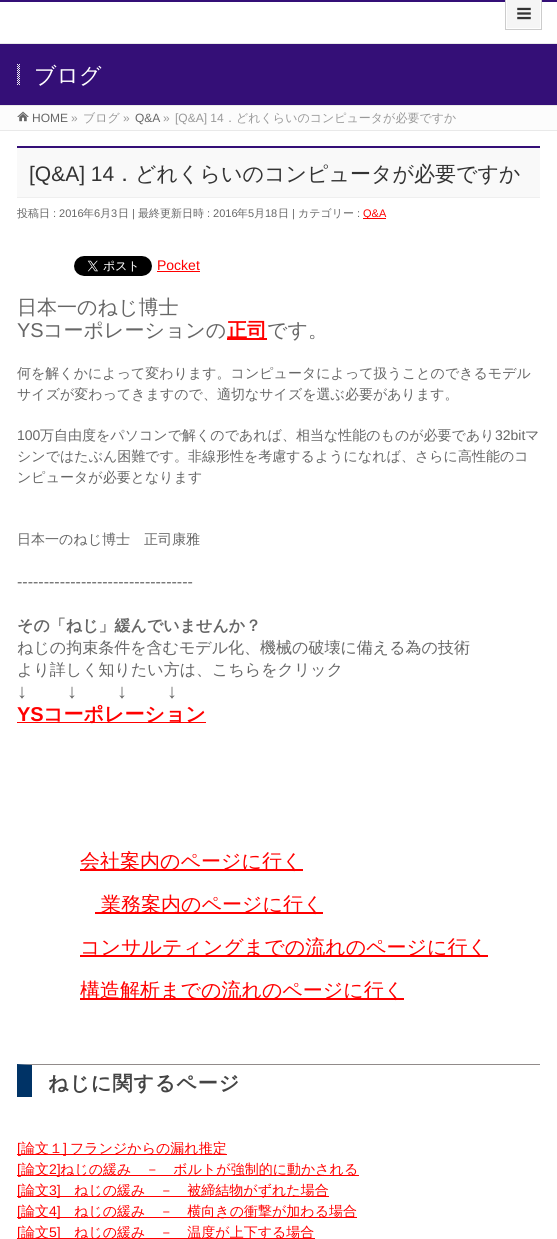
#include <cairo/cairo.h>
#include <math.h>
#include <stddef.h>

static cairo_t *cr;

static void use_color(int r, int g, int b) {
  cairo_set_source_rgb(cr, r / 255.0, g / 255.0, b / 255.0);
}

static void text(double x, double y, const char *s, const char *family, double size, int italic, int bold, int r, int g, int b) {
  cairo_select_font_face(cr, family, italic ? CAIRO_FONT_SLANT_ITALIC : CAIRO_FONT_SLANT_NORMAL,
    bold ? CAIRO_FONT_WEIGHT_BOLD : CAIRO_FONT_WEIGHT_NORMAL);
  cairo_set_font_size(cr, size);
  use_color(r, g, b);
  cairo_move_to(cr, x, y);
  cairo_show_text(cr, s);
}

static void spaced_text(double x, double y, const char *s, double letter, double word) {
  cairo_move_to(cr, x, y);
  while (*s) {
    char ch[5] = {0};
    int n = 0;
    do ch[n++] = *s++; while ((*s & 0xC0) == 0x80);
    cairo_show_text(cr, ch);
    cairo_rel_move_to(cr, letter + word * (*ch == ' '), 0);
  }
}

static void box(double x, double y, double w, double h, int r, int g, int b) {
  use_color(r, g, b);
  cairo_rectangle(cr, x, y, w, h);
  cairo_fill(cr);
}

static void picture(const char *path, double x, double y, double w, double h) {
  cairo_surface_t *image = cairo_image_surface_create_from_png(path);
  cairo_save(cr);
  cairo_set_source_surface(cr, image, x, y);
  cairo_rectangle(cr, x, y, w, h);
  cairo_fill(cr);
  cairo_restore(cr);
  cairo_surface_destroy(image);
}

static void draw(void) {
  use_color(255, 255, 255);
  cairo_paint(cr);
  box(0, 0, 557, 2, 52, 15, 119);
  use_color(245, 245, 245);
  cairo_rectangle(cr, 506.5, -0.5, 34, 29);
  cairo_fill_preserve(cr);
  use_color(254, 254, 254);
  cairo_set_line_width(cr, 1);
  cairo_stroke(cr);
  cairo_rectangle(cr, 505.5, -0.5, 36, 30);
  use_color(204, 204, 204);
  cairo_stroke(cr);
  picture("img_01.png", 517, 7, 14, 13);
  box(0, 44, 557, 61, 52, 15, 119);
  box(0, 43, 557, 1, 233, 233, 233);
  box(0, 105, 557, 1, 233, 233, 233);
  picture("img_02.png", 17, 64, 3, 21);
  box(0, 106, 557, 24, 252, 252, 252);
  picture("img_03.png", 17, 111, 12, 11);
  box(0, 130, 557, 1, 233, 233, 233);
  box(17, 148, 523, 49, 249, 249, 249);
  box(17, 146, 523, 2, 52, 15, 119);
  box(17, 197, 523, 1, 239, 239, 239);
  box(363, 218, 23, 1, 255, 0, 0);
  picture("img_04.png", 74, 256, 78, 20);
  box(157, 271, 43, 1, 255, 0, 0);
  box(227, 338, 40, 2, 255, 0, 0);
  box(17, 722, 189, 1, 255, 0, 0);
  box(80, 869, 223, 2, 255, 0, 0);
  box(95, 912, 228, 2, 255, 0, 0);
  box(80, 955, 408, 2, 255, 0, 0);
  box(80, 998, 324, 2, 255, 0, 0);
  use_color(145, 139, 138);
  cairo_new_path(cr);
  cairo_move_to(cr, 17, 1064);
  cairo_line_to(cr, 540, 1064);
  cairo_line_to(cr, 540, 1065);
  cairo_line_to(cr, 32, 1065);
  cairo_close_path(cr);
  cairo_fill(cr);
  use_color(0, 51, 102);
  cairo_new_path(cr);
  cairo_move_to(cr, 17, 1097);
  cairo_line_to(cr, 17, 1064);
  cairo_line_to(cr, 32, 1065);
  cairo_line_to(cr, 32, 1097);
  cairo_close_path(cr);
  cairo_fill(cr);
  box(17, 1154, 210, 1, 255, 0, 0);
  box(17, 1175, 342, 1, 255, 0, 0);
  box(17, 1196, 312, 1, 255, 0, 0);
  box(17, 1217, 340, 1, 255, 0, 0);
  box(17, 1238, 298, 1, 255, 0, 0);
  text(34, 83, "ブログ", "WenQuanYi Zen Hei Medium", 22, 0, 0, 255, 255, 255);
  text(32, 122, "HOME", "Liberation Sans", 12, 0, 0, 102, 102, 102);
  text(71, 122, "»", "Liberation Sans", 12, 0, 0, 153, 153, 153);
  text(83, 122, "ブログ", "WenQuanYi Zen Hei Medium", 12, 0, 0, 153, 153, 153);
  text(123, 122, "»", "Liberation Sans", 12, 0, 0, 153, 153, 153);
  text(135, 122, "Q&A", "Liberation Sans", 12, 0, 0, 102, 102, 102);
  text(163, 122, "»", "Liberation Sans", 12, 0, 0, 153, 153, 153);
  text(175, 122, "[Q&A] 14", "Liberation Sans", 12, 0, 0, 153, 153, 153);
  text(224, 122, "．どれくらいのコンピュータが必要ですか", "WenQuanYi Zen Hei Medium", 12, 0, 0, 153, 153, 153);
  text(29, 181, "[Q&A] 14", "Liberation Sans", 21, 0, 0, 51, 51, 51);
  text(114, 181, "．どれくらいのコンピュータが必要ですか", "WenQuanYi Zen Hei Medium", 21, 0, 0, 51, 51, 51);
  text(17, 217, "投稿日", "WenQuanYi Zen Hei Medium", 11, 0, 0, 102, 102, 102);
  text(53, 217, ": 2016", "Liberation Sans", 11, 0, 0, 102, 102, 102);
  text(83, 217, "年", "WenQuanYi Zen Hei Medium", 11, 0, 0, 102, 102, 102);
  text(94, 217, "6", "Liberation Sans", 11, 0, 0, 102, 102, 102);
  text(100, 217, "月", "WenQuanYi Zen Hei Medium", 11, 0, 0, 102, 102, 102);
  text(111, 217, "3", "Liberation Sans", 11, 0, 0, 102, 102, 102);
  text(118, 217, "日", "WenQuanYi Zen Hei Medium", 11, 0, 0, 102, 102, 102);
  text(132, 217, "|", "Liberation Sans", 11, 0, 0, 102, 102, 102);
  text(138, 217, "最終更新日時", "WenQuanYi Zen Hei Medium", 11, 0, 0, 102, 102, 102);
  text(207, 217, ": 2016", "Liberation Sans", 11, 0, 0, 102, 102, 102);
  text(237, 217, "年", "WenQuanYi Zen Hei Medium", 11, 0, 0, 102, 102, 102);
  text(248, 217, "5", "Liberation Sans", 11, 0, 0, 102, 102, 102);
  text(254, 217, "月", "WenQuanYi Zen Hei Medium", 11, 0, 0, 102, 102, 102);
  text(265, 217, "18", "Liberation Sans", 11, 0, 0, 102, 102, 102);
  text(278, 217, "日", "WenQuanYi Zen Hei Medium", 11, 0, 0, 102, 102, 102);
  text(292, 217, "|", "Liberation Sans", 11, 0, 0, 102, 102, 102);
  text(298, 217, "カテゴリー", "WenQuanYi Zen Hei Medium", 11, 0, 0, 102, 102, 102);
  text(357, 217, ":", "Liberation Sans", 11, 0, 0, 102, 102, 102);
  text(363, 217, "Q&A", "Liberation Sans", 11, 0, 0, 255, 0, 0);
  text(157, 270, "Pocket", "Liberation Sans", 14, 0, 0, 255, 0, 0);
  text(17, 314, "日本一のねじ博士", "WenQuanYi Zen Hei Medium", 20, 0, 0, 102, 102, 102);
  text(17, 337, "YS", "Liberation Sans", 20, 0, 0, 102, 102, 102);
  text(43, 337, "コーポレーションの", "WenQuanYi Zen Hei Medium", 20, 0, 0, 102, 102, 102);
  text(227, 337, "正司", "WenQuanYi Zen Hei", 20, 0, 1, 255, 0, 0);
  text(267, 337, "です。", "WenQuanYi Zen Hei Medium", 20, 0, 0, 102, 102, 102);
  text(17, 378, "何を解くかによって変わります。コンピュータによって扱うことのできるモデル", "WenQuanYi Zen Hei Medium", 14, 0, 0, 102, 102, 102);
  text(17, 399, "サイズが変わってきますので、適切なサイズを選ぶ必要があります。", "WenQuanYi Zen Hei Medium", 14, 0, 0, 102, 102, 102);
  text(17, 440, "100", "Liberation Sans", 14, 0, 0, 102, 102, 102);
  text(40, 440, "万自由度をパソコンで解くのであれば、相当な性能のものが必要であり", "WenQuanYi Zen Hei Medium", 14, 0, 0, 102, 102, 102);
  text(495, 440, "32bit", "Liberation Sans", 14, 0, 0, 102, 102, 102);
  text(525, 440, "マ", "WenQuanYi Zen Hei Medium", 14, 0, 0, 102, 102, 102);
  text(17, 461, "シンではたぶん困難です。非線形性を考慮するようになれば、さらに高性能のコ", "WenQuanYi Zen Hei Medium", 14, 0, 0, 102, 102, 102);
  text(17, 482, "ンピュータが必要となります", "WenQuanYi Zen Hei Medium", 14, 0, 0, 102, 102, 102);
  text(17, 544, "日本一のねじ博士　正司康雅", "WenQuanYi Zen Hei Medium", 14, 0, 0, 102, 102, 102);
  text(17, 587, "---------------------------------", "Liberation Sans", 16, 0, 0, 102, 102, 102);
  text(17, 631, "その「ねじ」緩んでいませんか？", "WenQuanYi Zen Hei", 16, 0, 1, 102, 102, 102);
  text(17, 653, "ねじの拘束条件を含むモデル化、機械の破壊に備える為の技術", "WenQuanYi Zen Hei Medium", 16, 0, 0, 102, 102, 102);
  text(17, 675, "より詳しく知りたい方は、こちらをクリック", "WenQuanYi Zen Hei Medium", 16, 0, 0, 102, 102, 102);
  text(17, 698, "↓", "Liberation Sans", 20, 0, 0, 102, 102, 102);
  text(67, 698, "↓", "Liberation Sans", 20, 0, 0, 102, 102, 102);
  text(117, 698, "↓", "Liberation Sans", 20, 0, 0, 102, 102, 102);
  text(167, 698, "↓", "Liberation Sans", 20, 0, 0, 102, 102, 102);
  text(17, 721, "YS", "Liberation Sans", 20, 0, 1, 255, 0, 0);
  text(43, 721, "コーポレーション", "WenQuanYi Zen Hei", 20, 0, 1, 255, 0, 0);
  text(80, 868, "会社案内のページに行く", "WenQuanYi Zen Hei Medium", 20, 0, 0, 255, 0, 0);
  text(101, 911, "業務案内のページに行く", "WenQuanYi Zen Hei Medium", 20, 0, 0, 255, 0, 0);
  text(80, 954, "コンサルティングまでの流れのページに行く", "WenQuanYi Zen Hei Medium", 20, 0, 0, 255, 0, 0);
  text(80, 997, "構造解析までの流れのページに行く", "WenQuanYi Zen Hei Medium", 20, 0, 0, 255, 0, 0);
  cairo_select_font_face(cr, "WenQuanYi Zen Hei", CAIRO_FONT_SLANT_NORMAL, CAIRO_FONT_WEIGHT_BOLD);
  use_color(68, 68, 68);
  spaced_text(48, 1090, "ねじに関するページ", 1, 0);
  text(17, 1153, "[", "Liberation Sans", 14, 0, 0, 255, 0, 0);
  text(21, 1153, "論文１", "WenQuanYi Zen Hei Medium", 14, 0, 0, 255, 0, 0);
  text(63, 1153, "]", "Liberation Sans", 14, 0, 0, 255, 0, 0);
  text(70, 1153, "フランジからの漏れ推定", "WenQuanYi Zen Hei Medium", 14, 0, 0, 255, 0, 0);
  text(17, 1174, "[", "Liberation Sans", 14, 0, 0, 255, 0, 0);
  text(21, 1174, "論文", "WenQuanYi Zen Hei Medium", 14, 0, 0, 255, 0, 0);
  text(49, 1174, "2]", "Liberation Sans", 14, 0, 0, 255, 0, 0);
  text(60, 1174, "ねじの緩み　－　ボルトが強制的に動かされる", "WenQuanYi Zen Hei Medium", 14, 0, 0, 255, 0, 0);
  text(17, 1195, "[", "Liberation Sans", 14, 0, 0, 255, 0, 0);
  text(21, 1195, "論文", "WenQuanYi Zen Hei Medium", 14, 0, 0, 255, 0, 0);
  text(49, 1195, "3]", "Liberation Sans", 14, 0, 0, 255, 0, 0);
  text(74, 1195, "ねじの緩み　－　被締結物がずれた場合", "WenQuanYi Zen Hei Medium", 14, 0, 0, 255, 0, 0);
  text(17, 1216, "[", "Liberation Sans", 14, 0, 0, 255, 0, 0);
  text(21, 1216, "論文", "WenQuanYi Zen Hei Medium", 14, 0, 0, 255, 0, 0);
  text(49, 1216, "4]", "Liberation Sans", 14, 0, 0, 255, 0, 0);
  text(74, 1216, "ねじの緩み　－　横向きの衝撃が加わる場合", "WenQuanYi Zen Hei Medium", 14, 0, 0, 255, 0, 0);
  text(17, 1237, "[", "Liberation Sans", 14, 0, 0, 255, 0, 0);
  text(21, 1237, "論文", "WenQuanYi Zen Hei Medium", 14, 0, 0, 255, 0, 0);
  text(49, 1237, "5]", "Liberation Sans", 14, 0, 0, 255, 0, 0);
  text(74, 1237, "ねじの緩み　－　温度が上下する場合", "WenQuanYi Zen Hei Medium", 14, 0, 0, 255, 0, 0);
}

int main(void) {
  cairo_surface_t *surface = cairo_image_surface_create(CAIRO_FORMAT_RGB24, 557, 1239);
  cr = cairo_create(surface);
  cairo_font_options_t *options = cairo_font_options_create();
  cairo_font_options_set_hint_metrics(options, CAIRO_HINT_METRICS_OFF);
  cairo_font_options_set_hint_style(options, CAIRO_HINT_STYLE_NONE);
  cairo_set_font_options(cr, options);
  cairo_set_miter_limit(cr, 4);
  draw();
  cairo_surface_write_to_png(surface, "out.png");
  cairo_font_options_destroy(options);
  cairo_destroy(cr);
  cairo_surface_destroy(surface);
  return 0;
}
